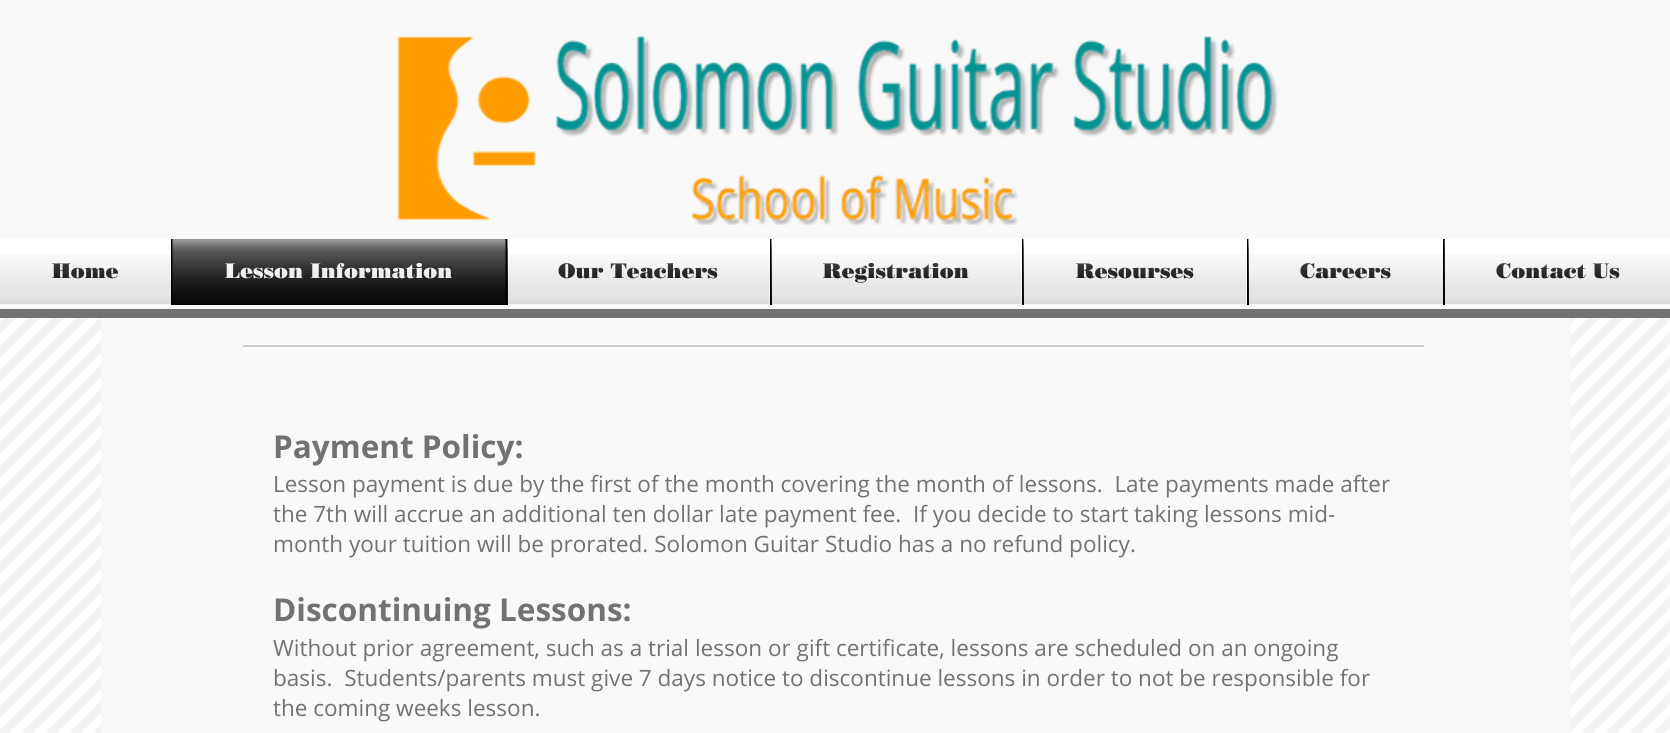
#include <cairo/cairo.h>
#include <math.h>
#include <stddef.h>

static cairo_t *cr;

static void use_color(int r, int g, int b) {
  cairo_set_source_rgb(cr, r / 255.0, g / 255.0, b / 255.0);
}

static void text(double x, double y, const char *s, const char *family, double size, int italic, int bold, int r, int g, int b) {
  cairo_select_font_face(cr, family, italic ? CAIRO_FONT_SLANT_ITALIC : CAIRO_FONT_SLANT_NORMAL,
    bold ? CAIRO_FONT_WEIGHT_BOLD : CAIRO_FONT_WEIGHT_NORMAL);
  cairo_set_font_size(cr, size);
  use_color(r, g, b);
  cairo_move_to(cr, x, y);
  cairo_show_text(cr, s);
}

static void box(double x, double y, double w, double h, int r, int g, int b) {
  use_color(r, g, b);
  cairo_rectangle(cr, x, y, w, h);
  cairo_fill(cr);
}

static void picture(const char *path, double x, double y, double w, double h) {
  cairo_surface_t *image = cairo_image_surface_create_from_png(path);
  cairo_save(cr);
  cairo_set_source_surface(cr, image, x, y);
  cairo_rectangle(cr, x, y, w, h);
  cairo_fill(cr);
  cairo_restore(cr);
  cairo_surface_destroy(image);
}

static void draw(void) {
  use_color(255, 255, 255);
  cairo_paint(cr);
  box(0, 0, 1670, 309, 249, 249, 249);
  box(0, 309, 1670, 9, 114, 114, 114);
  picture("img_01.png", 397, 35, 881, 190);
  box(0, 239, 171, 66, 255, 255, 255);
  box(171, 239, 337, 66, 0, 0, 0);
  box(508, 239, 262, 66, 255, 255, 255);
  box(772, 239, 250, 66, 255, 255, 255);
  box(770, 239, 2, 66, 0, 0, 0);
  box(1024, 239, 223, 66, 255, 255, 255);
  box(1022, 239, 2, 66, 0, 0, 0);
  box(1249, 239, 194, 66, 255, 255, 255);
  box(1247, 239, 2, 66, 0, 0, 0);
  box(1445, 239, 225, 66, 255, 255, 255);
  box(1443, 239, 2, 66, 0, 0, 0);
  picture("img_16.png", 0, 318, 1670, 415);
  box(101, 318, 1470, 415, 249, 249, 249);
  box(243, 345, 1181, 2, 205, 204, 204);
  text(52, 278, "Home", "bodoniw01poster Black", 21, 0, 0, 0, 0, 0);
  picture("img_02.png", 52, 263, 67, 16);
  picture("img_03.png", 0, 254, 171, 51);
  text(225, 278, "Lesson Information", "bodoniw01poster Black", 21, 0, 0, 255, 255, 255);
  picture("img_04.png", 172, 239, 334, 65);
  picture("img_05.png", 225, 263, 228, 16);
  text(558, 278, "Our Teachers", "bodoniw01poster Black", 21, 0, 0, 0, 0, 0);
  picture("img_06.png", 507, 239, 211, 65);
  picture("img_07.png", 508, 254, 262, 51);
  text(823, 278, "Registration", "bodoniw01poster Black", 21, 0, 0, 0, 0, 0);
  picture("img_08.png", 771, 239, 198, 65);
  picture("img_09.png", 772, 254, 250, 51);
  text(1076, 278, "Resourses", "bodoniw01poster Black", 21, 0, 0, 0, 0, 0);
  picture("img_10.png", 1023, 239, 171, 65);
  picture("img_11.png", 1024, 254, 223, 51);
  text(1300, 278, "Careers", "bodoniw01poster Black", 21, 0, 0, 0, 0, 0);
  picture("img_12.png", 1248, 239, 143, 65);
  picture("img_13.png", 1249, 254, 194, 51);
  text(1496, 278, "Contact Us", "bodoniw01poster Black", 21, 0, 0, 0, 0, 0);
  picture("img_14.png", 1444, 239, 175, 62);
  picture("img_15.png", 1445, 254, 225, 51);
  text(273, 458, "Payment Policy:", "Open Sans", 31.5, 0, 1, 114, 114, 114);
  text(273, 492, "Lesson payment is due by the first of the month covering the month of lessons.  Late payments made after", "Open Sans", 22.5, 0, 0, 114, 114, 114);
  text(273, 522, "the 7th will accrue an additional ten dollar late payment fee.  If you decide to start taking lessons mid-", "Open Sans", 22.5, 0, 0, 114, 114, 114);
  text(273, 552, "month your tuition will be prorated. Solomon Guitar Studio has a no refund policy.", "Open Sans", 22.5, 0, 0, 114, 114, 114);
  text(273, 621, "Discontinuing Lessons:", "Open Sans", 31.5, 0, 1, 114, 114, 114);
  text(273, 656, "Without prior agreement, such as a trial lesson or gift certificate, lessons are scheduled on an ongoing", "Open Sans", 22.5, 0, 0, 114, 114, 114);
  text(273, 686, "basis.  Students/parents must give 7 days notice to discontinue lessons in order to not be responsible for", "Open Sans", 22.5, 0, 0, 114, 114, 114);
  text(273, 716, "the coming weeks lesson.", "Open Sans", 22.5, 0, 0, 114, 114, 114);
}

int main(void) {
  cairo_surface_t *surface = cairo_image_surface_create(CAIRO_FORMAT_RGB24, 1670, 733);
  cr = cairo_create(surface);
  cairo_font_options_t *options = cairo_font_options_create();
  cairo_font_options_set_hint_metrics(options, CAIRO_HINT_METRICS_OFF);
  cairo_font_options_set_hint_style(options, CAIRO_HINT_STYLE_NONE);
  cairo_set_font_options(cr, options);
  cairo_set_miter_limit(cr, 4);
  draw();
  cairo_surface_write_to_png(surface, "out.png");
  cairo_font_options_destroy(options);
  cairo_destroy(cr);
  cairo_surface_destroy(surface);
  return 0;
}
